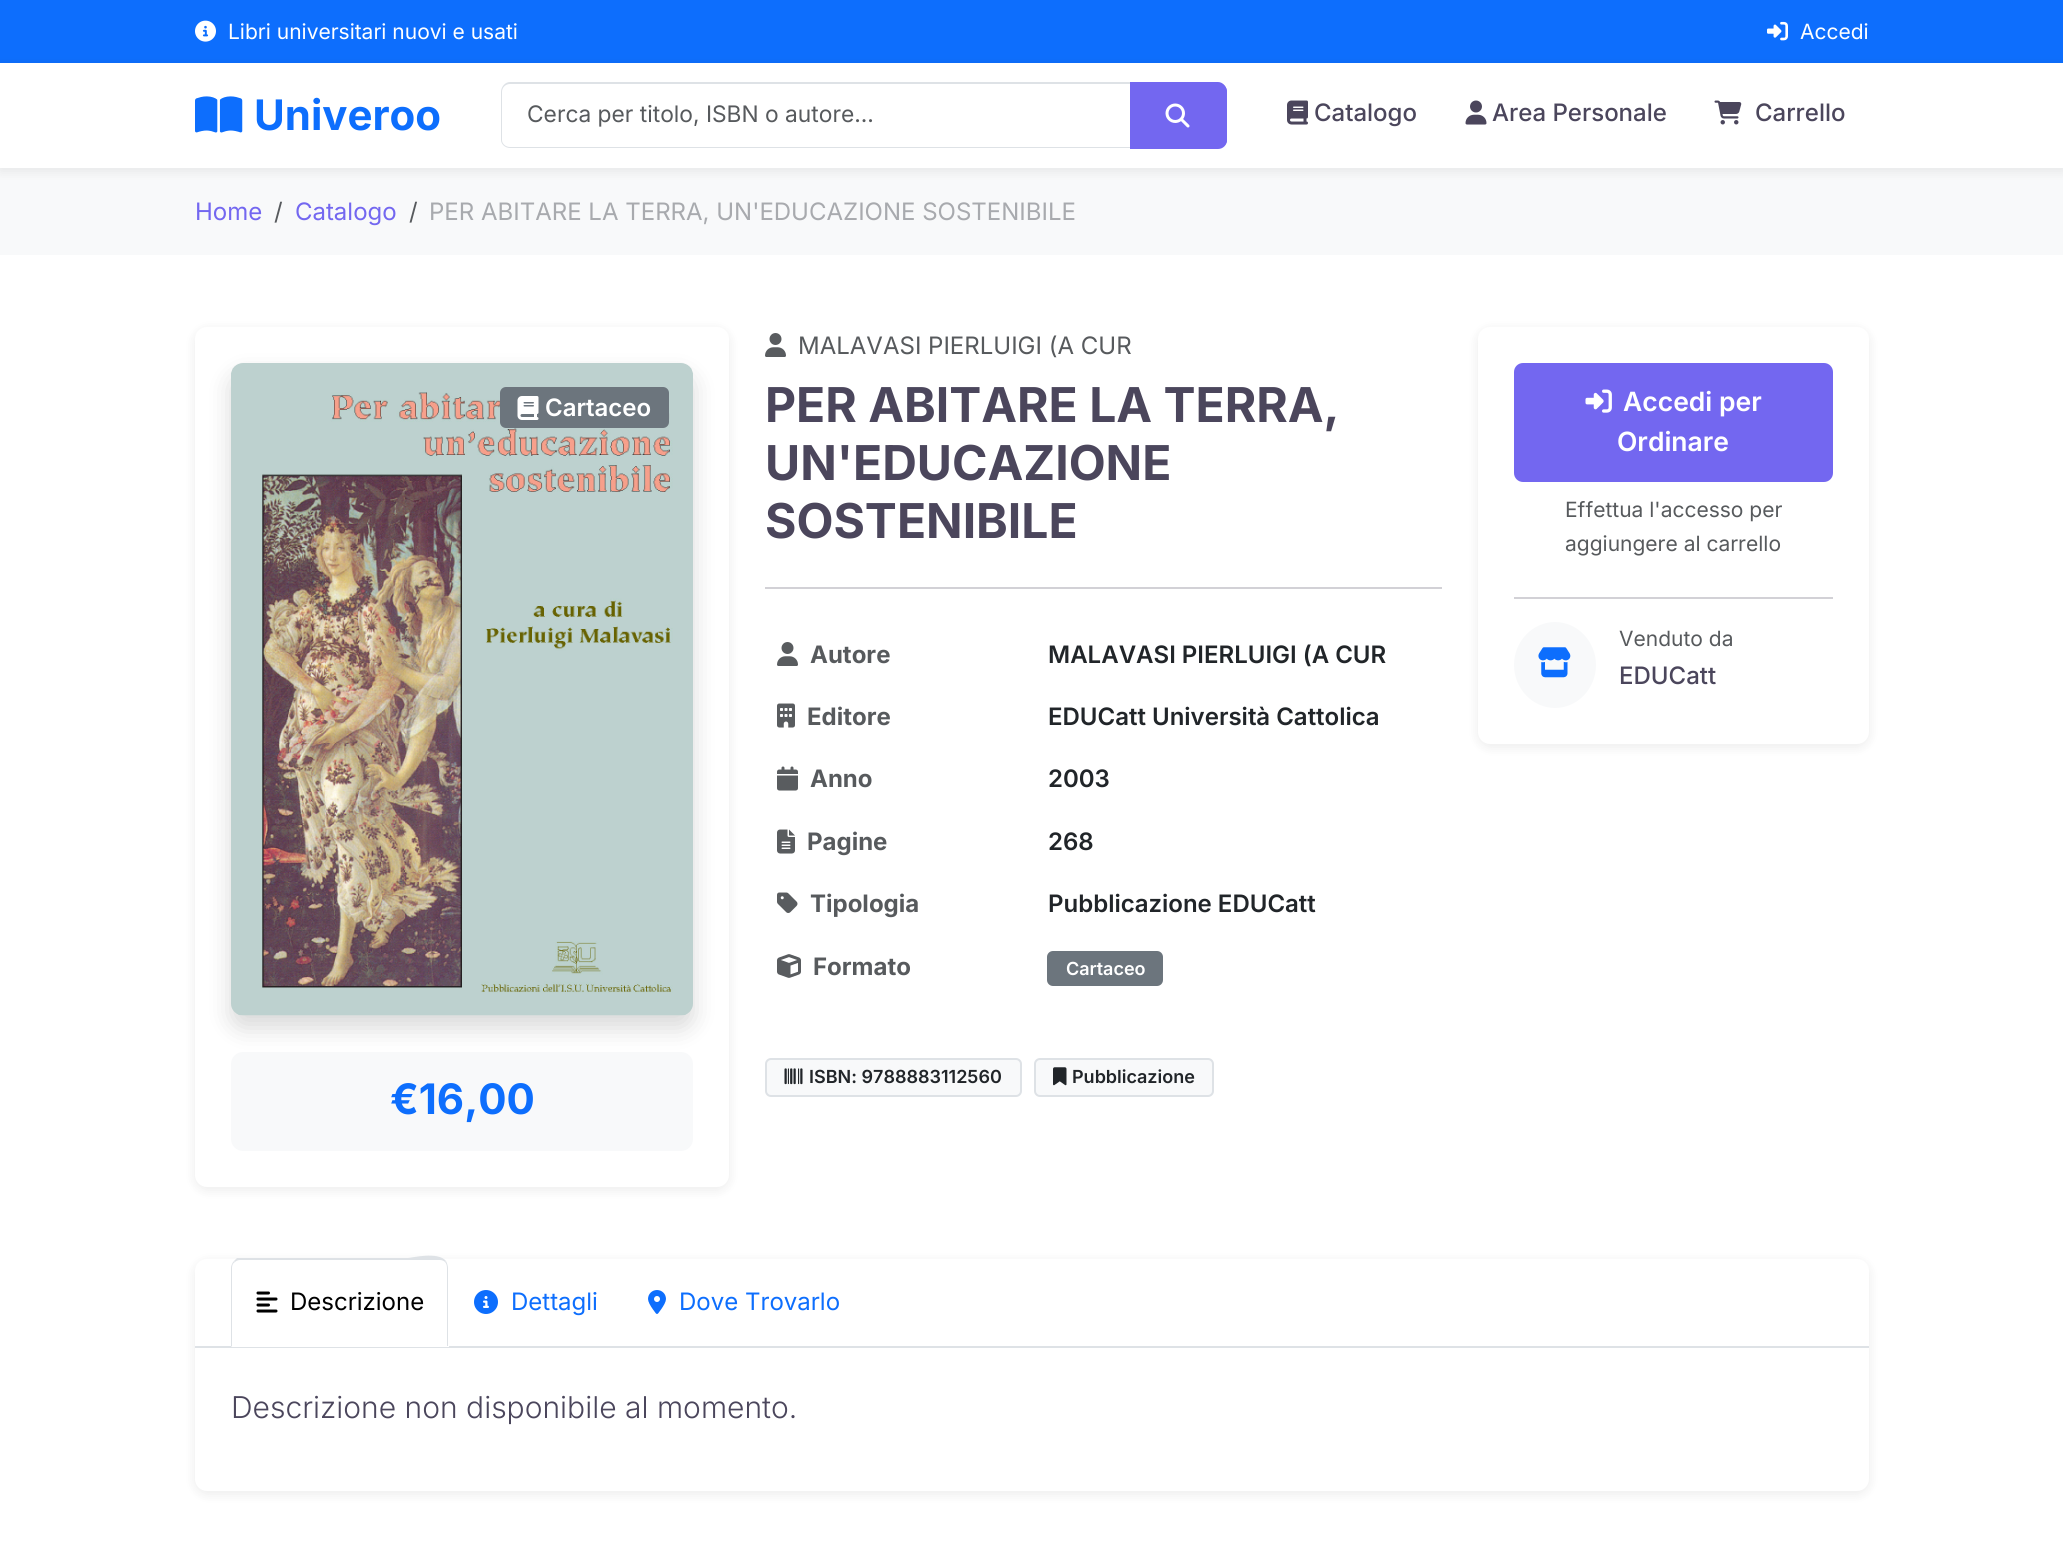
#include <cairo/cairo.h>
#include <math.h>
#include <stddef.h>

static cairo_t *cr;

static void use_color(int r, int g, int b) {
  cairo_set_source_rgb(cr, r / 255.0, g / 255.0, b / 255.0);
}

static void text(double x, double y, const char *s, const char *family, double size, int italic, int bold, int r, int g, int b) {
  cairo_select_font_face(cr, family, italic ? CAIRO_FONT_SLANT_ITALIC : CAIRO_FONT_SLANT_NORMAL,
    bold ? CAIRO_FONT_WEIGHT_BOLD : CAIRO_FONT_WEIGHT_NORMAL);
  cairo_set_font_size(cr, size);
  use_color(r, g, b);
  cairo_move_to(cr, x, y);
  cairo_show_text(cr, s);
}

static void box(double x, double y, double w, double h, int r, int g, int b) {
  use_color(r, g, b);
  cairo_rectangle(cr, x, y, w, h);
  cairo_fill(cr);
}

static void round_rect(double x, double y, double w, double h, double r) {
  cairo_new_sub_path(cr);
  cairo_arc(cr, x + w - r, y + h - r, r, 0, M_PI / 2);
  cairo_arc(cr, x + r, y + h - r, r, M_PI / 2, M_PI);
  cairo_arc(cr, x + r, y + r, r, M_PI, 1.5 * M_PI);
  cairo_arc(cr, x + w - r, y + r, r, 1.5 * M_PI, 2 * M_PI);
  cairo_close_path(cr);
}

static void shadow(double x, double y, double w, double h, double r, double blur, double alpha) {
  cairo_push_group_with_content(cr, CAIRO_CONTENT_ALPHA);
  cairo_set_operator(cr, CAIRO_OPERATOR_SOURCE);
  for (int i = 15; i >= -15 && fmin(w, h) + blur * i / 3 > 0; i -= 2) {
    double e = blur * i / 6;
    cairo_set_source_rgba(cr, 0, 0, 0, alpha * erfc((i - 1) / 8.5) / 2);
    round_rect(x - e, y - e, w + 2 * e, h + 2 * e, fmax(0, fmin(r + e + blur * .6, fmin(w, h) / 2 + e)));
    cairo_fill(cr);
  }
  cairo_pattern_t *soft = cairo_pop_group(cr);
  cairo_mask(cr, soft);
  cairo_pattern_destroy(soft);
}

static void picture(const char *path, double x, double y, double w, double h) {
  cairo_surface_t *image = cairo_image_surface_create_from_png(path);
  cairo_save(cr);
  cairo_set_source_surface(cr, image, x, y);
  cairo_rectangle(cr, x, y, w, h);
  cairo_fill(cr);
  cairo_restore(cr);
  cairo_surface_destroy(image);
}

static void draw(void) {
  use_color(255, 255, 255);
  cairo_paint(cr);
  box(0, 0, 2063, 63, 13, 110, 253);
  picture("img_01.png", 195, 20, 21, 22);
  picture("img_02.png", 1767, 21, 21, 20);
  box(0, 168, 2063, 87, 248, 249, 250);
  cairo_save(cr);
  cairo_set_fill_rule(cr, CAIRO_FILL_RULE_EVEN_ODD);
  cairo_new_path(cr);
  cairo_move_to(cr, 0, 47);
  cairo_line_to(cr, 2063, 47);
  cairo_line_to(cr, 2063, 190);
  cairo_line_to(cr, 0, 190);
  cairo_close_path(cr);
  cairo_move_to(cr, 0, 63);
  cairo_line_to(cr, 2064, 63);
  cairo_line_to(cr, 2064, 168);
  cairo_line_to(cr, 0, 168);
  cairo_close_path(cr);
  cairo_clip(cr);
  use_color(0, 0, 0);
  shadow(0, 66, 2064, 105, 0, 6, 0.08);
  cairo_restore(cr);
  picture("img_03.png", 195, 96, 48, 37);
  use_color(222, 226, 230);
  cairo_set_fill_rule(cr, CAIRO_FILL_RULE_EVEN_ODD);
  cairo_new_path(cr);
  cairo_move_to(cr, 510, 82);
  cairo_line_to(cr, 1131, 82);
  cairo_line_to(cr, 1131, 148);
  cairo_line_to(cr, 510, 148);
  cairo_curve_to(cr, 505, 148, 501, 144, 501, 140);
  cairo_line_to(cr, 501, 92);
  cairo_curve_to(cr, 501, 87, 505, 82, 510, 82);
  cairo_close_path(cr);
  cairo_move_to(cr, 510, 84);
  cairo_line_to(cr, 1131, 84);
  cairo_line_to(cr, 1131, 147);
  cairo_line_to(cr, 510, 147);
  cairo_curve_to(cr, 506, 147, 502, 144, 502, 140);
  cairo_line_to(cr, 502, 92);
  cairo_curve_to(cr, 502, 87, 506, 84, 510, 84);
  cairo_close_path(cr);
  cairo_fill(cr);
  use_color(115, 103, 240);
  cairo_new_path(cr);
  cairo_move_to(cr, 1130, 83);
  cairo_line_to(cr, 1218, 83);
  cairo_curve_to(cr, 1223, 83, 1227, 87, 1227, 92);
  cairo_line_to(cr, 1227, 140);
  cairo_curve_to(cr, 1227, 145, 1223, 149, 1218, 149);
  cairo_line_to(cr, 1130, 149);
  cairo_close_path(cr);
  cairo_fill(cr);
  cairo_new_path(cr);
  cairo_move_to(cr, 1130, 82);
  cairo_line_to(cr, 1218, 82);
  cairo_curve_to(cr, 1223, 82, 1227, 87, 1227, 92);
  cairo_line_to(cr, 1227, 140);
  cairo_curve_to(cr, 1227, 144, 1223, 148, 1218, 148);
  cairo_line_to(cr, 1130, 148);
  cairo_close_path(cr);
  cairo_move_to(cr, 1130, 84);
  cairo_line_to(cr, 1218, 84);
  cairo_curve_to(cr, 1222, 84, 1226, 87, 1226, 92);
  cairo_line_to(cr, 1226, 140);
  cairo_curve_to(cr, 1226, 144, 1222, 147, 1218, 147);
  cairo_line_to(cr, 1130, 147);
  cairo_close_path(cr);
  cairo_fill(cr);
  picture("img_04.png", 1165, 103, 25, 25);
  picture("img_05.png", 1287, 100, 21, 25);
  picture("img_06.png", 1465, 100, 22, 25);
  picture("img_07.png", 1714, 100, 28, 25);
  use_color(0, 0, 0);
  shadow(195, 330, 534, 860, 12, 6, 0.08);
  use_color(255, 255, 255);
  round_rect(195, 327, 534, 860, 12);
  cairo_fill(cr);
  use_color(248, 249, 250);
  round_rect(231, 1052, 462, 99, 12);
  cairo_fill(cr);
  use_color(0, 0, 0);
  shadow(231, 375, 462, 653, 12, 12, 0.15);
  picture("img_08.png", 231, 363, 462, 653);
  use_color(108, 117, 125);
  round_rect(500, 387, 169, 41, 6);
  cairo_fill(cr);
  picture("img_09.png", 517, 396, 22, 24);
  picture("img_10.png", 765, 333, 21, 24);
  box(765, 587, 677, 2, 210, 209, 214);
  picture("img_10.png", 777, 642, 21, 24);
  picture("img_11.png", 777, 703, 18, 25);
  picture("img_12.png", 777, 766, 21, 25);
  picture("img_13.png", 777, 829, 18, 25);
  picture("img_14.png", 777, 892, 21, 21);
  picture("img_15.png", 777, 954, 24, 24);
  use_color(108, 117, 125);
  round_rect(1047, 951, 116, 35, 6);
  cairo_fill(cr);
  use_color(248, 249, 250);
  round_rect(766, 1059, 255, 37, 5);
  cairo_fill_preserve(cr);
  use_color(222, 226, 230);
  cairo_stroke(cr);
  picture("img_16.png", 784, 1068, 19, 17);
  use_color(248, 249, 250);
  round_rect(1035, 1059, 178, 37, 5);
  cairo_fill_preserve(cr);
  use_color(222, 226, 230);
  cairo_stroke(cr);
  picture("img_17.png", 1053, 1067, 14, 19);
  use_color(0, 0, 0);
  shadow(1478, 330, 391, 417, 12, 6, 0.08);
  use_color(255, 255, 255);
  round_rect(1478, 327, 391, 417, 12);
  cairo_fill(cr);
  use_color(115, 103, 240);
  round_rect(1515, 364, 317, 117, 8);
  cairo_fill_preserve(cr);
  cairo_stroke(cr);
  picture("img_18.png", 1585, 389, 27, 24);
  box(1514, 597, 319, 2, 210, 209, 214);
  use_color(248, 249, 250);
  cairo_new_path(cr);
  cairo_move_to(cr, 1555, 622);
  cairo_curve_to(cr, 1577.5, 622, 1596, 641.5, 1596, 665);
  cairo_curve_to(cr, 1596, 688.5, 1577.5, 708, 1555, 708);
  cairo_curve_to(cr, 1532.5, 708, 1514, 688.5, 1514, 665);
  cairo_curve_to(cr, 1514, 641.5, 1532.5, 622, 1555, 622);
  cairo_close_path(cr);
  cairo_fill(cr);
  picture("img_19.png", 1538, 647, 33, 31);
  use_color(0, 0, 0);
  shadow(195, 1262, 1674, 232, 12, 6, 0.08);
  use_color(255, 255, 255);
  round_rect(195, 1259, 1674, 232, 12);
  cairo_fill(cr);
  box(195, 1346, 1674, 2, 222, 226, 230);
  use_color(255, 255, 255);
  cairo_new_path(cr);
  cairo_move_to(cr, 240, 1259);
  cairo_line_to(cr, 440, 1259);
  cairo_curve_to(cr, 445, 1259, 449, 1263, 449, 1268);
  cairo_line_to(cr, 449, 1347);
  cairo_line_to(cr, 231, 1347);
  cairo_line_to(cr, 231, 1268);
  cairo_curve_to(cr, 231, 1263, 235, 1259, 240, 1259);
  cairo_close_path(cr);
  cairo_fill(cr);
  use_color(222, 226, 230);
  cairo_set_fill_rule(cr, CAIRO_FILL_RULE_WINDING);
  cairo_new_path(cr);
  cairo_move_to(cr, 240, 1260);
  cairo_curve_to(cr, 238, 1260, 236, 1261, 235, 1262);
  cairo_line_to(cr, 234, 1261);
  cairo_line_to(cr, 237, 1258);
  cairo_line_to(cr, 408, 1258);
  cairo_curve_to(cr, 411, 1258, 438, 1251, 446, 1261);
  cairo_line_to(cr, 445, 1262);
  cairo_curve_to(cr, 444, 1261, 442, 1260, 440, 1260);
  cairo_close_path(cr);
  cairo_fill(cr);
  cairo_new_path(cr);
  cairo_move_to(cr, 446, 1261);
  cairo_curve_to(cr, 447, 1263, 448, 1266, 448, 1268);
  cairo_line_to(cr, 448, 1346);
  cairo_line_to(cr, 447, 1346);
  cairo_line_to(cr, 447, 1268);
  cairo_curve_to(cr, 447, 1265, 446, 1263, 445, 1262);
  cairo_close_path(cr);
  cairo_fill(cr);
  cairo_new_path(cr);
  cairo_move_to(cr, 231, 1347);
  cairo_line_to(cr, 232, 1346);
  cairo_line_to(cr, 232, 1268);
  cairo_curve_to(cr, 232, 1265, 233, 1263, 235, 1262);
  cairo_line_to(cr, 234, 1261);
  cairo_curve_to(cr, 232, 1263, 231, 1266, 231, 1268);
  cairo_close_path(cr);
  cairo_fill(cr);
  picture("img_20.png", 256, 1291, 22, 22);
  picture("img_21.png", 474, 1290, 24, 24);
  picture("img_22.png", 648, 1290, 18, 24);
  text(228, 39, "Libri universitari nuovi e usati", "Inter", 21, 0, 0, 255, 255, 255);
  text(1800, 39, "Accedi", "Inter", 21, 0, 0, 255, 255, 255);
  text(254, 130, "Univeroo", "Inter", 42, 0, 1, 13, 110, 253);
  text(527, 122, "Cerca per titolo, ISBN o autore...", "Inter", 22.75, 0, 0, 87, 90, 93);
  text(1314, 121, "Catalogo", "Inter Medium", 24, 0, 0, 75, 70, 92);
  text(1492, 121, "Area Personale", "Inter Medium", 24, 0, 0, 75, 70, 92);
  text(1755, 121, "Carrello", "Inter Medium", 24, 0, 0, 75, 70, 92);
  text(195, 220, "Home", "Inter", 24, 0, 0, 115, 103, 240);
  text(274, 220, "/", "Inter", 24, 0, 0, 87, 90, 93);
  text(295, 220, "Catalogo", "Inter", 24, 0, 0, 115, 103, 240);
  text(409, 220, "/", "Inter", 24, 0, 0, 87, 90, 93);
  text(429, 220, "PER ABITARE LA TERRA, UN'EDUCAZIONE SOSTENIBILE", "Inter", 24, 0, 0, 168, 170, 174);
  text(545, 416, "Cartaceo", "Inter SemiBold", 24, 0, 0, 255, 255, 255);
  text(390, 1114, "€16,00", "Inter", 42, 0, 1, 13, 110, 253);
  text(798, 354, "MALAVASI PIERLUIGI (A CUR", "Inter", 24, 0, 0, 87, 90, 93);
  text(765, 422, "PER ABITARE LA TERRA,", "Inter", 48, 0, 1, 75, 70, 92);
  text(765, 480, "UN'EDUCAZIONE", "Inter", 48, 0, 1, 75, 70, 92);
  text(765, 538, "SOSTENIBILE", "Inter", 48, 0, 1, 75, 70, 92);
  text(810, 663, "Autore", "Inter", 24, 0, 1, 87, 90, 93);
  text(1048, 663, "MALAVASI PIERLUIGI (A CUR", "Inter SemiBold", 24, 0, 0, 33, 37, 41);
  text(807, 725, "Editore", "Inter", 24, 0, 1, 87, 90, 93);
  text(1048, 725, "EDUCatt Università Cattolica", "Inter SemiBold", 24, 0, 0, 33, 37, 41);
  text(810, 787, "Anno", "Inter", 24, 0, 1, 87, 90, 93);
  text(1048, 787, "2003", "Inter SemiBold", 24, 0, 0, 33, 37, 41);
  text(807, 850, "Pagine", "Inter", 24, 0, 1, 87, 90, 93);
  text(1048, 850, "268", "Inter SemiBold", 24, 0, 0, 33, 37, 41);
  text(810, 912, "Tipologia", "Inter", 24, 0, 1, 87, 90, 93);
  text(1048, 912, "Pubblicazione EDUCatt", "Inter SemiBold", 24, 0, 0, 33, 37, 41);
  text(813, 975, "Formato", "Inter", 24, 0, 1, 87, 90, 93);
  text(1066, 975, "Cartaceo", "Inter SemiBold", 18, 0, 0, 255, 255, 255);
  text(809, 1083, "ISBN: 9788883112560", "Inter SemiBold", 18, 0, 0, 33, 37, 41);
  text(1072, 1083, "Pubblicazione", "Inter SemiBold", 18, 0, 0, 33, 37, 41);
  text(1623, 411, "Accedi per", "Inter SemiBold", 26.5, 0, 0, 255, 255, 255);
  text(1617, 451, "Ordinare", "Inter SemiBold", 26.5, 0, 0, 255, 255, 255);
  text(1565, 517, "Effettua l'accesso per", "Inter", 21, 0, 0, 87, 90, 93);
  text(1565, 551, "aggiungere al carrello", "Inter", 21, 0, 0, 87, 90, 93);
  text(1619, 646, "Venduto da", "Inter", 21, 0, 0, 87, 90, 93);
  text(1619, 684, "EDUCatt", "Inter Medium", 24, 0, 0, 75, 70, 92);
  text(290, 1310, "Descrizione", "Inter", 24, 0, 0, 0, 0, 0);
  text(511, 1310, "Dettagli", "Inter", 24, 0, 0, 13, 110, 253);
  text(679, 1310, "Dove Trovarlo", "Inter", 24, 0, 0, 13, 110, 253);
  text(231, 1418, "Descrizione non disponibile al momento.", "Inter Light", 30, 0, 0, 75, 70, 92);
}

int main(void) {
  cairo_surface_t *surface = cairo_image_surface_create(CAIRO_FORMAT_RGB24, 2063, 1549);
  cr = cairo_create(surface);
  cairo_font_options_t *options = cairo_font_options_create();
  cairo_font_options_set_hint_metrics(options, CAIRO_HINT_METRICS_OFF);
  cairo_font_options_set_hint_style(options, CAIRO_HINT_STYLE_NONE);
  cairo_set_font_options(cr, options);
  cairo_set_miter_limit(cr, 4);
  draw();
  cairo_surface_write_to_png(surface, "out.png");
  cairo_font_options_destroy(options);
  cairo_destroy(cr);
  cairo_surface_destroy(surface);
  return 0;
}
